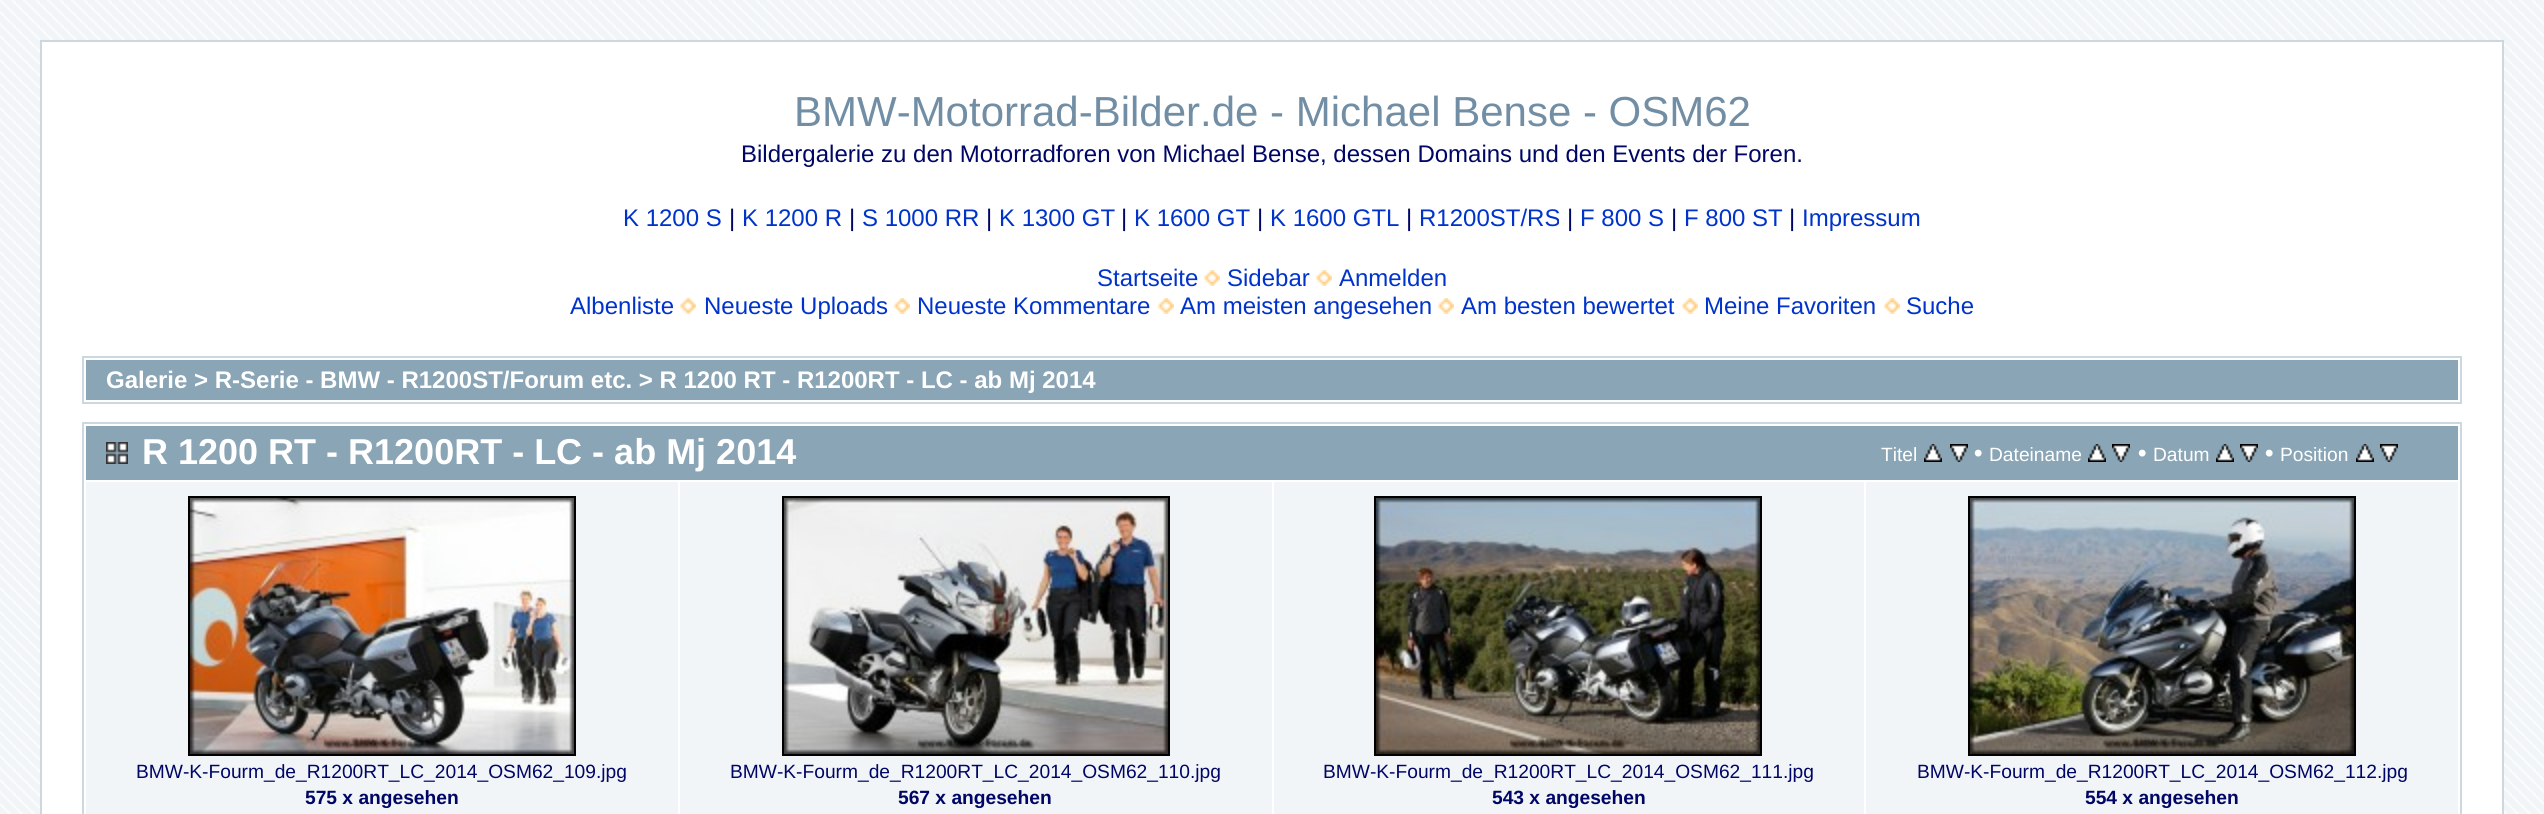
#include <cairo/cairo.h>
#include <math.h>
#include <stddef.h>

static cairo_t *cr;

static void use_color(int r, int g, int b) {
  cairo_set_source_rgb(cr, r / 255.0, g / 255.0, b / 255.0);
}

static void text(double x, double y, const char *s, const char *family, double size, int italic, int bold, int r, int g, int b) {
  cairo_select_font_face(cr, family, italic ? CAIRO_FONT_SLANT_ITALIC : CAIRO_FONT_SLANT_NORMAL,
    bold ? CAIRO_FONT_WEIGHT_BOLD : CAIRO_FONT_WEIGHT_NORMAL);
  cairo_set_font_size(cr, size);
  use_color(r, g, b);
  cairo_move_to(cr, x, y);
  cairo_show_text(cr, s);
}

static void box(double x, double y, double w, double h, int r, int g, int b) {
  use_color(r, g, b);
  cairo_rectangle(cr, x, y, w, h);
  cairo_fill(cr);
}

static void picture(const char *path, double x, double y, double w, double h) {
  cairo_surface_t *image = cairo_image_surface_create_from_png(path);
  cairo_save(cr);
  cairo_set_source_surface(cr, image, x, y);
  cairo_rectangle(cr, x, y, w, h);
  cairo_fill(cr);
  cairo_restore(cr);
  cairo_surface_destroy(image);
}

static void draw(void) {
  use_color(242, 245, 247);
  cairo_paint(cr);
  picture("img_01.png", 0, 0, 2544, 814);
  use_color(255, 255, 255);
  cairo_rectangle(cr, 41, 41, 2462, 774);
  cairo_fill_preserve(cr);
  use_color(204, 215, 224);
  cairo_stroke(cr);
  picture("img_02.png", 1204, 270, 16, 16);
  picture("img_02.png", 1316, 270, 16, 16);
  picture("img_02.png", 680, 298, 16, 16);
  picture("img_02.png", 894, 298, 16, 16);
  picture("img_02.png", 1158, 298, 16, 16);
  picture("img_02.png", 1438, 298, 16, 16);
  picture("img_02.png", 1682, 298, 16, 16);
  picture("img_02.png", 1884, 298, 16, 16);
  cairo_rectangle(cr, 83, 357, 2378, 46);
  cairo_stroke(cr);
  box(86, 360, 2372, 40, 138, 165, 181);
  cairo_rectangle(cr, 83, 423, 2378, 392);
  use_color(204, 215, 224);
  cairo_stroke(cr);
  box(86, 426, 2372, 54, 138, 165, 181);
  picture("img_03.png", 106, 442, 22, 22);
  picture("img_04.png", 1924, 444, 18, 18);
  picture("img_05.png", 1950, 444, 18, 18);
  picture("img_04.png", 2088, 444, 18, 18);
  picture("img_05.png", 2112, 444, 18, 18);
  picture("img_04.png", 2216, 444, 18, 18);
  picture("img_05.png", 2240, 444, 18, 18);
  picture("img_04.png", 2356, 444, 18, 18);
  picture("img_05.png", 2380, 444, 18, 18);
  box(86, 482, 592, 332, 242, 245, 247);
  cairo_rectangle(cr, 189, 497, 386, 258);
  use_color(0, 0, 0);
  cairo_stroke(cr);
  picture("img_06.png", 190, 498, 384, 256);
  box(680, 482, 592, 332, 242, 245, 247);
  cairo_rectangle(cr, 783, 497, 386, 258);
  use_color(0, 0, 0);
  cairo_stroke(cr);
  picture("img_07.png", 784, 498, 384, 256);
  box(1274, 482, 590, 332, 242, 245, 247);
  cairo_rectangle(cr, 1375, 497, 386, 258);
  use_color(0, 0, 0);
  cairo_stroke(cr);
  picture("img_08.png", 1376, 498, 384, 256);
  box(1866, 482, 592, 332, 242, 245, 247);
  cairo_rectangle(cr, 1969, 497, 386, 258);
  use_color(0, 0, 0);
  cairo_stroke(cr);
  picture("img_09.png", 1970, 498, 384, 256);
  text(794, 126, "BMW-Motorrad-Bilder.de - Michael Bense - OSM62", "Liberation Sans", 42, 0, 0, 113, 142, 165);
  text(741, 162, "Bildergalerie zu den Motorradforen von Michael Bense, dessen Domains und den Events der Foren.", "Liberation Sans", 24, 0, 0, 0, 6, 102);
  text(623, 226, "K 1200 S", "Liberation Sans", 24, 0, 0, 0, 51, 204);
  text(729, 226, "|", "Liberation Sans", 24, 0, 0, 0, 6, 102);
  text(742, 226, "K 1200 R", "Liberation Sans", 24, 0, 0, 0, 51, 204);
  text(849, 226, "|", "Liberation Sans", 24, 0, 0, 0, 6, 102);
  text(862, 226, "S 1000 RR", "Liberation Sans", 24, 0, 0, 0, 51, 204);
  text(986, 226, "|", "Liberation Sans", 24, 0, 0, 0, 6, 102);
  text(999, 226, "K 1300 GT", "Liberation Sans", 24, 0, 0, 0, 51, 204);
  text(1121, 226, "|", "Liberation Sans", 24, 0, 0, 0, 6, 102);
  text(1134, 226, "K 1600 GT", "Liberation Sans", 24, 0, 0, 0, 51, 204);
  text(1257, 226, "|", "Liberation Sans", 24, 0, 0, 0, 6, 102);
  text(1270, 226, "K 1600 GTL", "Liberation Sans", 24, 0, 0, 0, 51, 204);
  text(1406, 226, "|", "Liberation Sans", 24, 0, 0, 0, 6, 102);
  text(1419, 226, "R1200ST/RS", "Liberation Sans", 24, 0, 0, 0, 51, 204);
  text(1567, 226, "|", "Liberation Sans", 24, 0, 0, 0, 6, 102);
  text(1580, 226, "F 800 S", "Liberation Sans", 24, 0, 0, 0, 51, 204);
  text(1671, 226, "|", "Liberation Sans", 24, 0, 0, 0, 6, 102);
  text(1684, 226, "F 800 ST", "Liberation Sans", 24, 0, 0, 0, 51, 204);
  text(1789, 226, "|", "Liberation Sans", 24, 0, 0, 0, 6, 102);
  text(1802, 226, "Impressum", "Liberation Sans", 24, 0, 0, 0, 51, 204);
  text(1097, 286, "Startseite", "Liberation Sans", 24, 0, 0, 0, 51, 204);
  text(1227, 286, "Sidebar", "Liberation Sans", 24, 0, 0, 0, 51, 204);
  text(1339, 286, "Anmelden", "Liberation Sans", 24, 0, 0, 0, 51, 204);
  text(570, 314, "Albenliste", "Liberation Sans", 24, 0, 0, 0, 51, 204);
  text(704, 314, "Neueste Uploads", "Liberation Sans", 24, 0, 0, 0, 51, 204);
  text(917, 314, "Neueste Kommentare", "Liberation Sans", 24, 0, 0, 0, 51, 204);
  text(1180, 314, "Am meisten angesehen", "Liberation Sans", 24, 0, 0, 0, 51, 204);
  text(1461, 314, "Am besten bewertet", "Liberation Sans", 24, 0, 0, 0, 51, 204);
  text(1704, 314, "Meine Favoriten", "Liberation Sans", 24, 0, 0, 0, 51, 204);
  text(1906, 314, "Suche", "Liberation Sans", 24, 0, 0, 0, 51, 204);
  text(106, 388, "Galerie > R-Serie - BMW - R1200ST/Forum etc. > R 1200 RT - R1200RT - LC - ab Mj 2014", "Liberation Sans", 24, 0, 1, 255, 255, 255);
  text(142, 464, "R 1200 RT - R1200RT - LC - ab Mj 2014", "Liberation Sans", 36, 0, 1, 255, 255, 255);
  text(1881, 461, "Titel", "Liberation Sans", 19.2, 0, 0, 255, 255, 255);
  text(1974, 461, "•", "Liberation Sans", 24, 0, 1, 255, 255, 255);
  text(1989, 461, "Dateiname", "Liberation Sans", 19.2, 0, 0, 255, 255, 255);
  text(2138, 461, "•", "Liberation Sans", 24, 0, 1, 255, 255, 255);
  text(2153, 461, "Datum", "Liberation Sans", 19.2, 0, 0, 255, 255, 255);
  text(2265, 461, "•", "Liberation Sans", 24, 0, 1, 255, 255, 255);
  text(2280, 461, "Position", "Liberation Sans", 19.2, 0, 0, 255, 255, 255);
  text(136, 778, "BMW-K-Fourm_de_R1200RT_LC_2014_OSM62_109.jpg", "Liberation Sans", 19.2, 0, 0, 0, 6, 102);
  text(305, 804, "575 x angesehen", "Liberation Sans", 19.2, 0, 1, 0, 6, 102);
  text(730, 778, "BMW-K-Fourm_de_R1200RT_LC_2014_OSM62_110.jpg", "Liberation Sans", 19.2, 0, 0, 0, 6, 102);
  text(898, 804, "567 x angesehen", "Liberation Sans", 19.2, 0, 1, 0, 6, 102);
  text(1323, 778, "BMW-K-Fourm_de_R1200RT_LC_2014_OSM62_111.jpg", "Liberation Sans", 19.2, 0, 0, 0, 6, 102);
  text(1492, 804, "543 x angesehen", "Liberation Sans", 19.2, 0, 1, 0, 6, 102);
  text(1917, 778, "BMW-K-Fourm_de_R1200RT_LC_2014_OSM62_112.jpg", "Liberation Sans", 19.2, 0, 0, 0, 6, 102);
  text(2085, 804, "554 x angesehen", "Liberation Sans", 19.2, 0, 1, 0, 6, 102);
}

int main(void) {
  cairo_surface_t *surface = cairo_image_surface_create(CAIRO_FORMAT_RGB24, 2544, 814);
  cr = cairo_create(surface);
  cairo_font_options_t *options = cairo_font_options_create();
  cairo_font_options_set_hint_metrics(options, CAIRO_HINT_METRICS_OFF);
  cairo_font_options_set_hint_style(options, CAIRO_HINT_STYLE_NONE);
  cairo_set_font_options(cr, options);
  cairo_set_miter_limit(cr, 4);
  draw();
  cairo_surface_write_to_png(surface, "out.png");
  cairo_font_options_destroy(options);
  cairo_destroy(cr);
  cairo_surface_destroy(surface);
  return 0;
}
